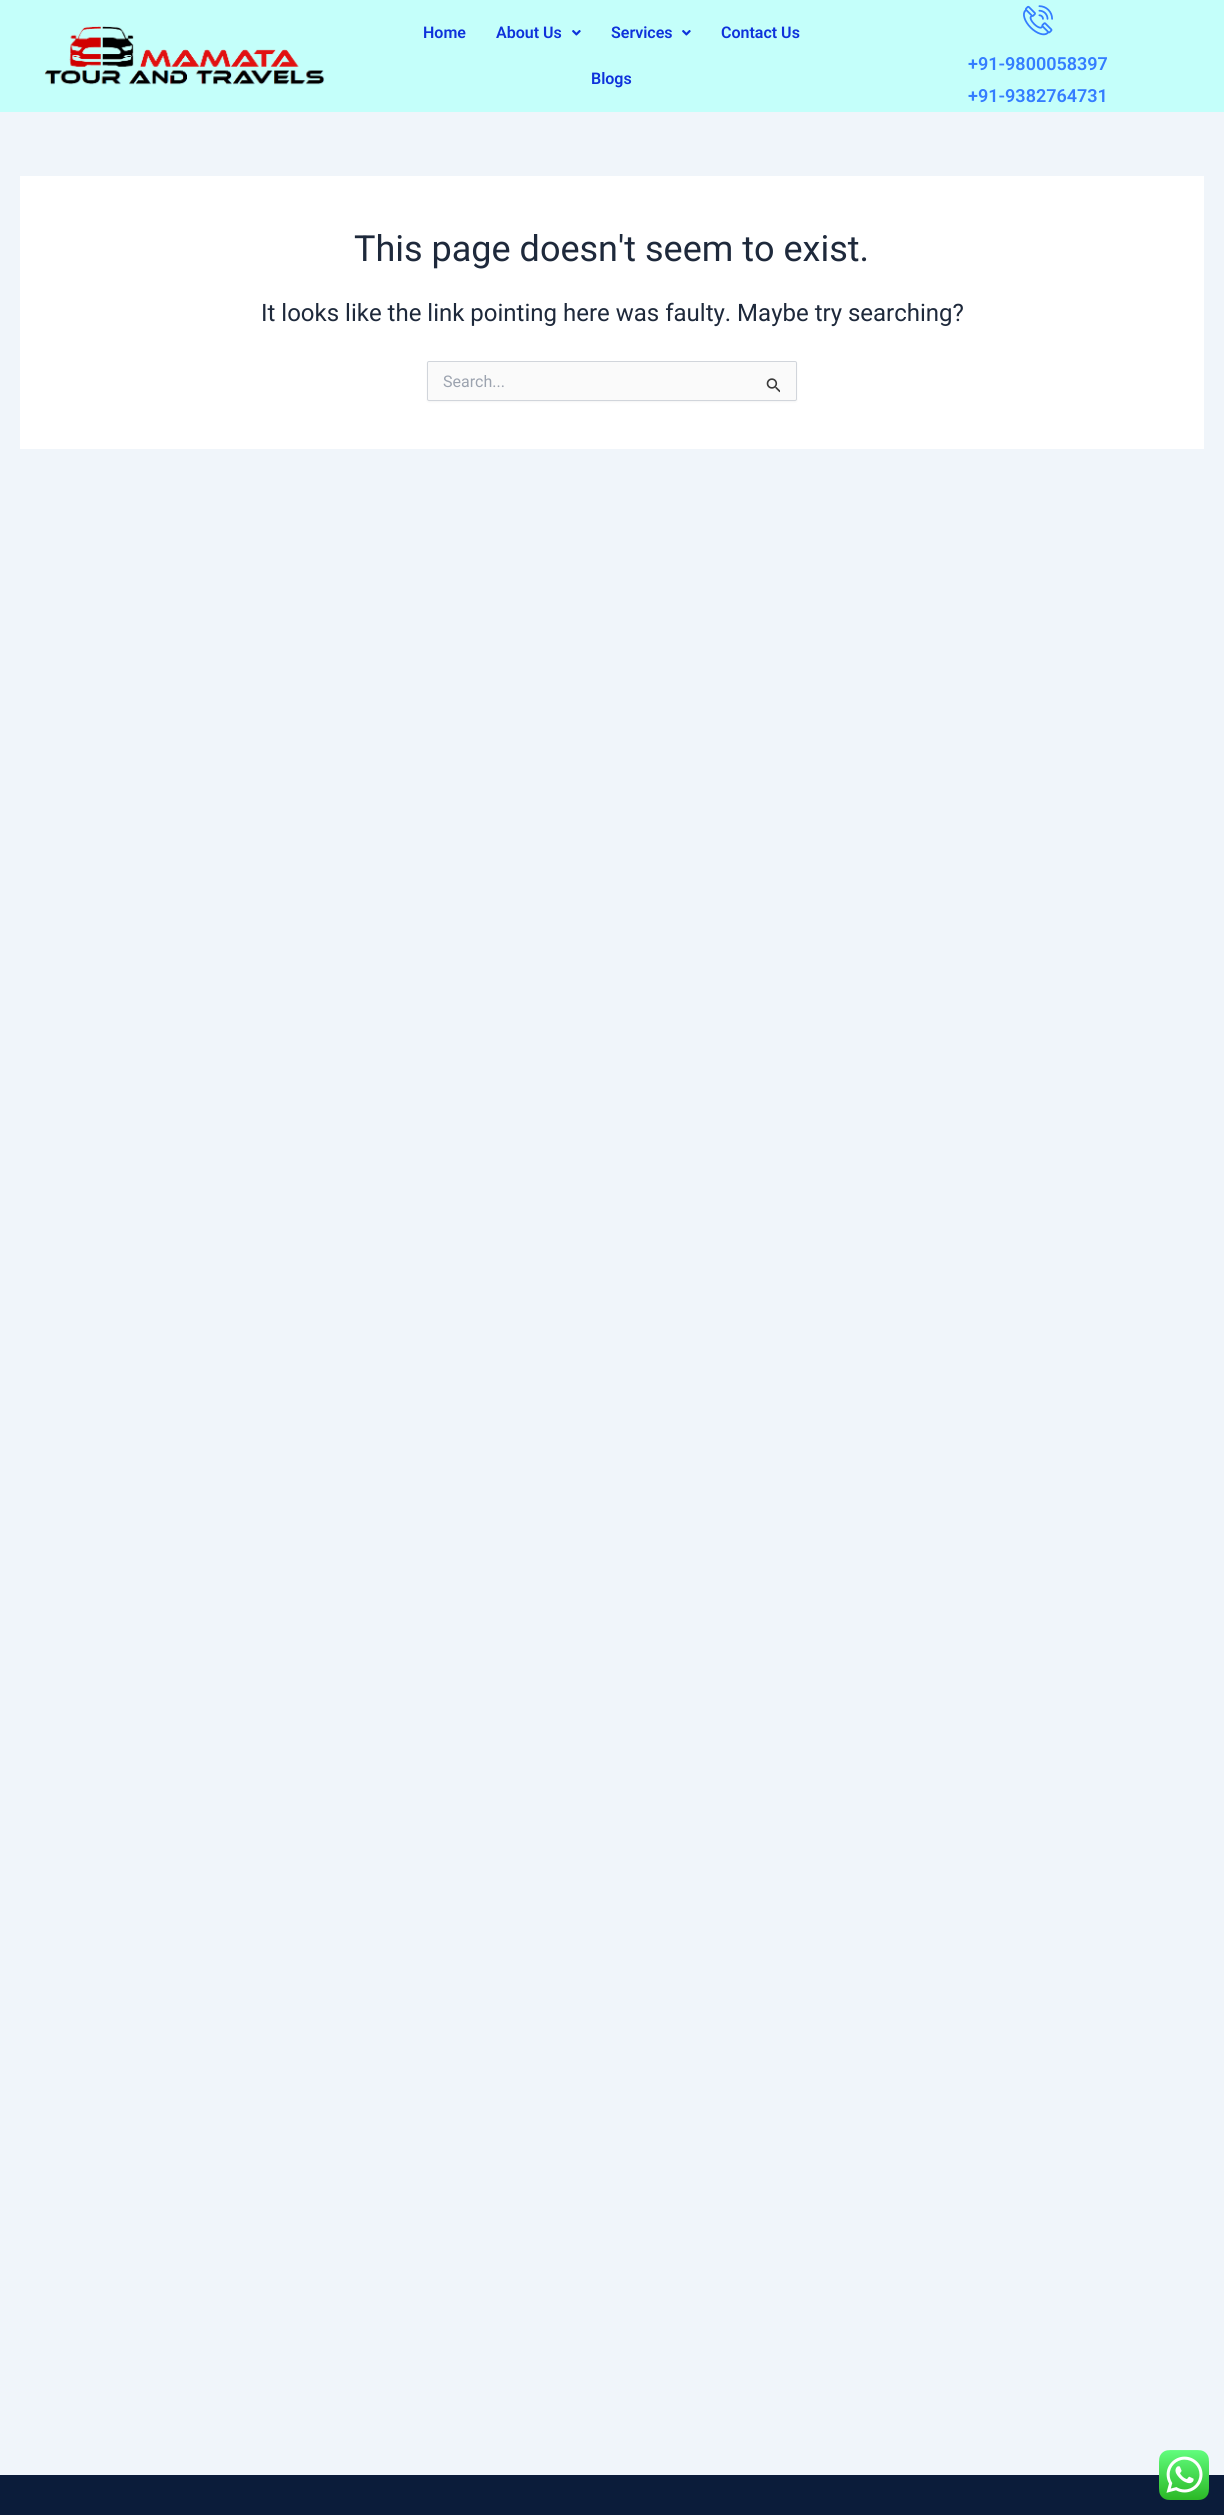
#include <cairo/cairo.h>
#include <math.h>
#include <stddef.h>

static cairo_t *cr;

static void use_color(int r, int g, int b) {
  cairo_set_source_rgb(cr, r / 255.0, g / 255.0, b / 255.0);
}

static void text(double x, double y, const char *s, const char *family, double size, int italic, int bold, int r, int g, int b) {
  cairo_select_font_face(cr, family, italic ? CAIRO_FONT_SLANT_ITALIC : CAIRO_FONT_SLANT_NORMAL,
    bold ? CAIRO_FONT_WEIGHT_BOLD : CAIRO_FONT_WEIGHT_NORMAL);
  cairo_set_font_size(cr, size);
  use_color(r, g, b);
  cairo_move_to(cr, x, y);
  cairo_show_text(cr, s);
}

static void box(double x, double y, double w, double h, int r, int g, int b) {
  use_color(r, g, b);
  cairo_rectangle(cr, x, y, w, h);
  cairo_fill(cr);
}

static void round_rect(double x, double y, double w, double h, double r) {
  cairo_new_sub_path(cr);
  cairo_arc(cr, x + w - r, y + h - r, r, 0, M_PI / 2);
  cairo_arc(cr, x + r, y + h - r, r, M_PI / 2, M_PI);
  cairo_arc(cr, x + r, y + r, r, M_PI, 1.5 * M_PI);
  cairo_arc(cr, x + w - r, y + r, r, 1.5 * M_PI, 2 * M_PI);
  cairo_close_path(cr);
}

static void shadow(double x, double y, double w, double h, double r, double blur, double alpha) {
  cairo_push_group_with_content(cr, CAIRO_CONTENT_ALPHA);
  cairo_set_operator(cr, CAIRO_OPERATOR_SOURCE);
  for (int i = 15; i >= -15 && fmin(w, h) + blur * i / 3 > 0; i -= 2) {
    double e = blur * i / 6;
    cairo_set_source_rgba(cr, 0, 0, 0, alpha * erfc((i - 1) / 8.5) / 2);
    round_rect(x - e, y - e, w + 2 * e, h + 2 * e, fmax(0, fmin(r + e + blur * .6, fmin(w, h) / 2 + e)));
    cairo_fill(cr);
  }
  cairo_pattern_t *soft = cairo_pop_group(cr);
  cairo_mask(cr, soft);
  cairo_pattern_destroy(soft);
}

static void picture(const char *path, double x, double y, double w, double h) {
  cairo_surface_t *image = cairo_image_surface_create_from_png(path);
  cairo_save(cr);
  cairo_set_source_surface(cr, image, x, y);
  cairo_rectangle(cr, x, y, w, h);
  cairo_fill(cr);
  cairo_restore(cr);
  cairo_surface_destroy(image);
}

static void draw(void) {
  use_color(240, 245, 250);
  cairo_paint(cr);
  box(0, 0, 1224, 112, 196, 255, 250);
  picture("img_01.png", 44, 26, 281, 59);
  picture("img_02.png", 572, 30, 9, 6);
  picture("img_02.png", 682, 30, 9, 6);
  picture("img_03.png", 1023, 5, 30, 31);
  box(20, 176, 1184, 273, 255, 255, 255);
  use_color(0, 0, 0);
  shadow(427, 362, 370, 40, 2, 1, 0.05);
  use_color(250, 250, 250);
  round_rect(427.5, 361.5, 369, 39, 1.5);
  cairo_fill_preserve(cr);
  use_color(209, 213, 219);
  cairo_set_line_width(cr, 1);
  cairo_stroke(cr);
  picture("img_04.png", 766, 378, 14, 15);
  box(0, 2475, 1224, 40, 11, 28, 58);
  picture("img_05.png", 1159, 2450, 50, 50);
  text(423, 38, "Home", "Roboto SemiBold", 16, 0, 0, 14, 50, 219);
  text(496, 38, "About Us", "Roboto SemiBold", 16, 0, 0, 14, 50, 219);
  text(611, 38, "Services", "Roboto SemiBold", 16, 0, 0, 14, 50, 219);
  text(721, 38, "Contact Us", "Roboto SemiBold", 16, 0, 0, 14, 50, 219);
  text(591, 84, "Blogs", "Roboto SemiBold", 16, 0, 0, 14, 50, 219);
  text(968, 70, "+91-9800058397", "Roboto SemiBold", 18, 0, 0, 52, 125, 255);
  text(968, 102, "+91-9382764731", "Roboto SemiBold", 18, 0, 0, 52, 125, 255);
  text(354, 261, "This page doesn't seem to exist.", "Roboto", 36, 0, 0, 30, 41, 59);
  text(261, 321, "It looks like the link pointing here was faulty. Maybe try searching?", "Roboto", 24, 0, 0, 30, 41, 59);
  text(443, 387, "Search...", "Roboto", 16, 0, 0, 156, 163, 175);
}

int main(void) {
  cairo_surface_t *surface = cairo_image_surface_create(CAIRO_FORMAT_RGB24, 1224, 2515);
  cr = cairo_create(surface);
  cairo_font_options_t *options = cairo_font_options_create();
  cairo_font_options_set_hint_metrics(options, CAIRO_HINT_METRICS_OFF);
  cairo_font_options_set_hint_style(options, CAIRO_HINT_STYLE_NONE);
  cairo_set_font_options(cr, options);
  cairo_set_miter_limit(cr, 4);
  draw();
  cairo_surface_write_to_png(surface, "out.png");
  cairo_font_options_destroy(options);
  cairo_destroy(cr);
  cairo_surface_destroy(surface);
  return 0;
}
